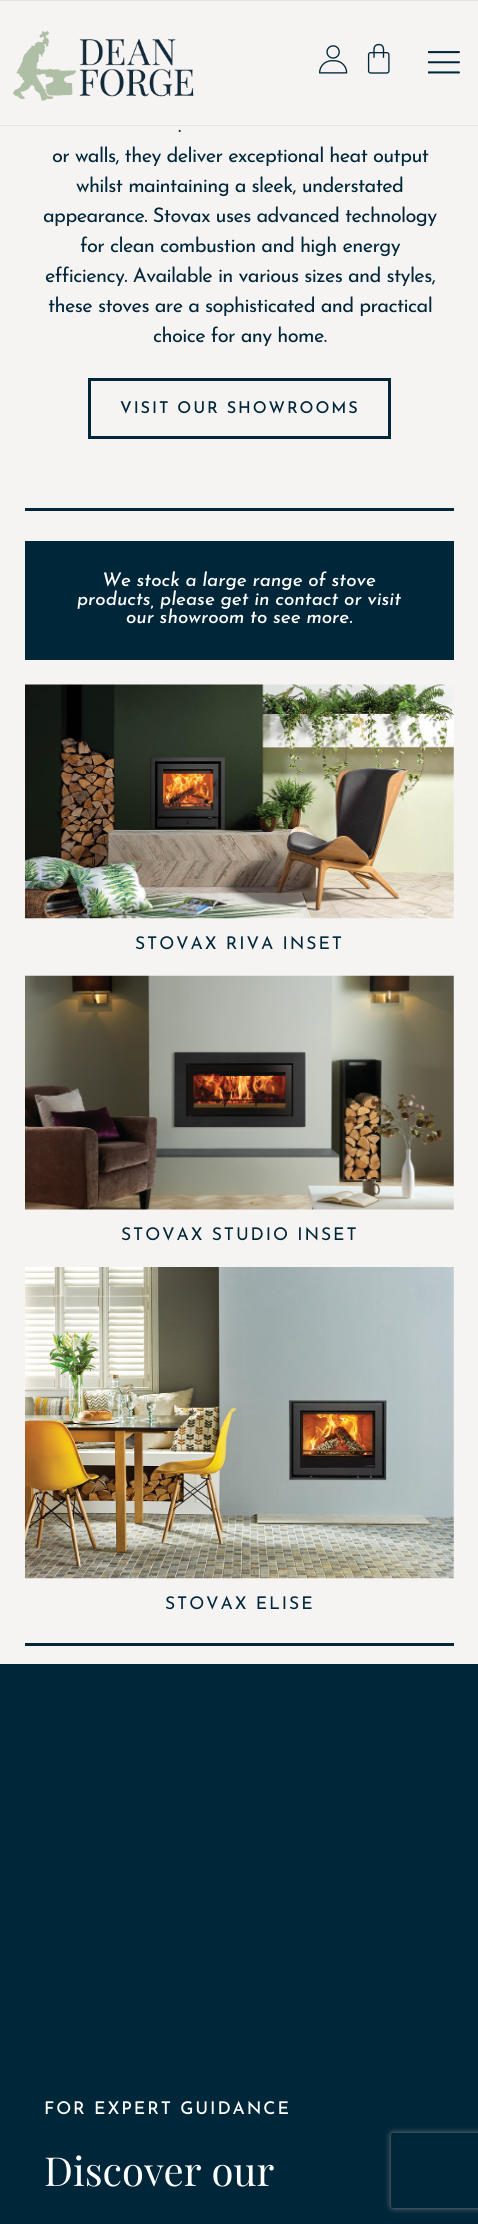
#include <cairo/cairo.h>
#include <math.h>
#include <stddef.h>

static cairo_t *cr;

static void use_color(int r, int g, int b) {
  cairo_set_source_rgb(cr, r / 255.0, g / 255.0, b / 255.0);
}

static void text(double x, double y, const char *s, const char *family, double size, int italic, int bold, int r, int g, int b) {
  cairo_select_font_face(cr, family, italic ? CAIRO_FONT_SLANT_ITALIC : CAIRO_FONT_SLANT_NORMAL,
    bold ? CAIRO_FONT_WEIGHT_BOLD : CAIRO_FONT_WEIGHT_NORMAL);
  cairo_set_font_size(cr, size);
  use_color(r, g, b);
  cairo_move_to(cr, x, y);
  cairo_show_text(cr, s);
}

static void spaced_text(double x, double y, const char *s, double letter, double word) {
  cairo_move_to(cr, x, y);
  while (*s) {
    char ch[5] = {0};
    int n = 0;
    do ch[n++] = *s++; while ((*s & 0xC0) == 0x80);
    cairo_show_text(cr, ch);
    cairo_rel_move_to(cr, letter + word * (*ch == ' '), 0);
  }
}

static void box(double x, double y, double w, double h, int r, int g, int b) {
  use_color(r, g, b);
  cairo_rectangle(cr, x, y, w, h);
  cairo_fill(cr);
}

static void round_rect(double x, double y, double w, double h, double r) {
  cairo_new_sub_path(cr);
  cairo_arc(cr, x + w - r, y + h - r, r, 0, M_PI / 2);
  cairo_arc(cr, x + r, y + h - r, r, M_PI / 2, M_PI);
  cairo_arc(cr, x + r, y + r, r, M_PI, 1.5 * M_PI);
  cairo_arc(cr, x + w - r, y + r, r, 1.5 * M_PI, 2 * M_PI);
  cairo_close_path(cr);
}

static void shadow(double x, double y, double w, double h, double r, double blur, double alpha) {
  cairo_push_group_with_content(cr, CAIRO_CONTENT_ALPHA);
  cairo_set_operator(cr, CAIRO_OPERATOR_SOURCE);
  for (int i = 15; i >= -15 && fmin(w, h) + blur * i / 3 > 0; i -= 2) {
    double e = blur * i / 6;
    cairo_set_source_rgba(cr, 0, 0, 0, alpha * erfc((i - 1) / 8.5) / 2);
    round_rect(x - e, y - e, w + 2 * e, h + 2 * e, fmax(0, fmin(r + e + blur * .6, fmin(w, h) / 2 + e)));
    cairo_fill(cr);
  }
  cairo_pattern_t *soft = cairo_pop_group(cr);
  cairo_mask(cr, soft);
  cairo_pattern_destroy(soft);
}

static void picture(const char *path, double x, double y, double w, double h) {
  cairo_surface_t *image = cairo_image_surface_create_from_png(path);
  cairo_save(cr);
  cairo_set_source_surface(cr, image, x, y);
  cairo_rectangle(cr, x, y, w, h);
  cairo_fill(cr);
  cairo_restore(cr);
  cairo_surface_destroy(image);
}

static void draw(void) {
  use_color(246, 244, 243);
  cairo_paint(cr);
  box(0, 0, 478, 1, 228, 227, 226);
  box(0, 125, 478, 1, 228, 227, 226);
  picture("img_01.png", 12, 31, 182, 70);
  picture("img_02.png", 319, 45, 29, 29);
  picture("img_03.png", 367, 43, 23, 31);
  picture("img_04.png", 428, 51, 32, 23);
  cairo_rectangle(cr, 89.5, 379.5, 300, 58);
  use_color(0, 38, 58);
  cairo_set_line_width(cr, 3);
  cairo_stroke(cr);
  box(25, 508, 429, 3, 0, 38, 58);
  box(25, 541, 429, 119, 0, 38, 58);
  picture("img_05.png", 25, 684, 429, 235);
  picture("img_06.png", 25, 975, 429, 235);
  picture("img_07.png", 25, 1267, 429, 312);
  box(25, 1643, 429, 3, 0, 38, 58);
  box(0, 1664, 478, 560, 0, 38, 58);
  cairo_save(cr);
  cairo_set_fill_rule(cr, CAIRO_FILL_RULE_EVEN_ODD);
  cairo_new_path(cr);
  cairo_move_to(cr, 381, 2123);
  cairo_line_to(cr, 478, 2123);
  cairo_line_to(cr, 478, 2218);
  cairo_line_to(cr, 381, 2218);
  cairo_close_path(cr);
  cairo_move_to(cr, 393.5, 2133);
  cairo_line_to(cr, 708.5, 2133);
  cairo_curve_to(cr, 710, 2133, 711, 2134, 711, 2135.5);
  cairo_line_to(cr, 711, 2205.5);
  cairo_curve_to(cr, 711, 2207, 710, 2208, 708.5, 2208);
  cairo_line_to(cr, 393.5, 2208);
  cairo_curve_to(cr, 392, 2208, 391, 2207, 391, 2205.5);
  cairo_line_to(cr, 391, 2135.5);
  cairo_curve_to(cr, 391, 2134, 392, 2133, 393.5, 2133);
  cairo_close_path(cr);
  cairo_clip(cr);
  use_color(128, 128, 128);
  shadow(391, 2133, 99, 75, 2.5, 3, 1);
  cairo_restore(cr);
  cairo_select_font_face(cr, "Josefin Sans", CAIRO_FONT_SLANT_NORMAL, CAIRO_FONT_WEIGHT_NORMAL);
  cairo_set_font_size(cr, 20);
  spaced_text(178, 132, ".", -0.6, 0);
  spaced_text(52, 162, "or walls, they deliver exceptional heat output", -0.6, 0);
  spaced_text(76, 192, "whilst maintaining a sleek, understated", -0.6, 0);
  spaced_text(43, 222, "appearance. Stovax uses advanced technology", -0.6, 0);
  spaced_text(80, 252, "for clean combustion and high energy", -0.6, 0);
  spaced_text(45, 282, "efficiency. Available in various sizes and styles,", -0.6, 0);
  spaced_text(48, 312, "these stoves are a sophisticated and practical", -0.6, 0);
  spaced_text(153, 342, "choice for any home.", -0.6, 0);
  cairo_select_font_face(cr, "Josefin Sans Medium", CAIRO_FONT_SLANT_NORMAL, CAIRO_FONT_WEIGHT_NORMAL);
  cairo_set_font_size(cr, 16.25);
  spaced_text(120, 413, "VISIT OUR SHOWROOMS", 1.9, 0);
  text(102, 586, "We stock a large range of stove", "Josefin Sans Medium", 18.75, 1, 0, 255, 255, 255);
  text(77, 605, "products, please get in contact or visit", "Josefin Sans Medium", 18.75, 1, 0, 255, 255, 255);
  text(126, 623, "our showroom to see more.", "Josefin Sans Medium", 18.75, 1, 0, 255, 255, 255);
  cairo_select_font_face(cr, "Josefin Sans", CAIRO_FONT_SLANT_NORMAL, CAIRO_FONT_WEIGHT_NORMAL);
  cairo_set_font_size(cr, 17.5);
  use_color(0, 38, 58);
  spaced_text(135, 949, "STOVAX RIVA INSET", 1.9, 0);
  spaced_text(121, 1240, "STOVAX STUDIO INSET", 1.9, 0);
  spaced_text(165, 1609, "STOVAX ELISE", 1.9, 0);
  cairo_select_font_face(cr, "Josefin Sans Medium", CAIRO_FONT_SLANT_NORMAL, CAIRO_FONT_WEIGHT_NORMAL);
  use_color(255, 255, 255);
  spaced_text(44, 2114, "FOR EXPERT GUIDANCE", 1.9, 0);
  text(44, 2186, "Discover our", "Playfair Display", 40, 0, 0, 255, 255, 255);
}

int main(void) {
  cairo_surface_t *surface = cairo_image_surface_create(CAIRO_FORMAT_RGB24, 478, 2224);
  cr = cairo_create(surface);
  cairo_font_options_t *options = cairo_font_options_create();
  cairo_font_options_set_hint_metrics(options, CAIRO_HINT_METRICS_OFF);
  cairo_font_options_set_hint_style(options, CAIRO_HINT_STYLE_NONE);
  cairo_set_font_options(cr, options);
  cairo_set_miter_limit(cr, 4);
  draw();
  cairo_surface_write_to_png(surface, "out.png");
  cairo_font_options_destroy(options);
  cairo_destroy(cr);
  cairo_surface_destroy(surface);
  return 0;
}
